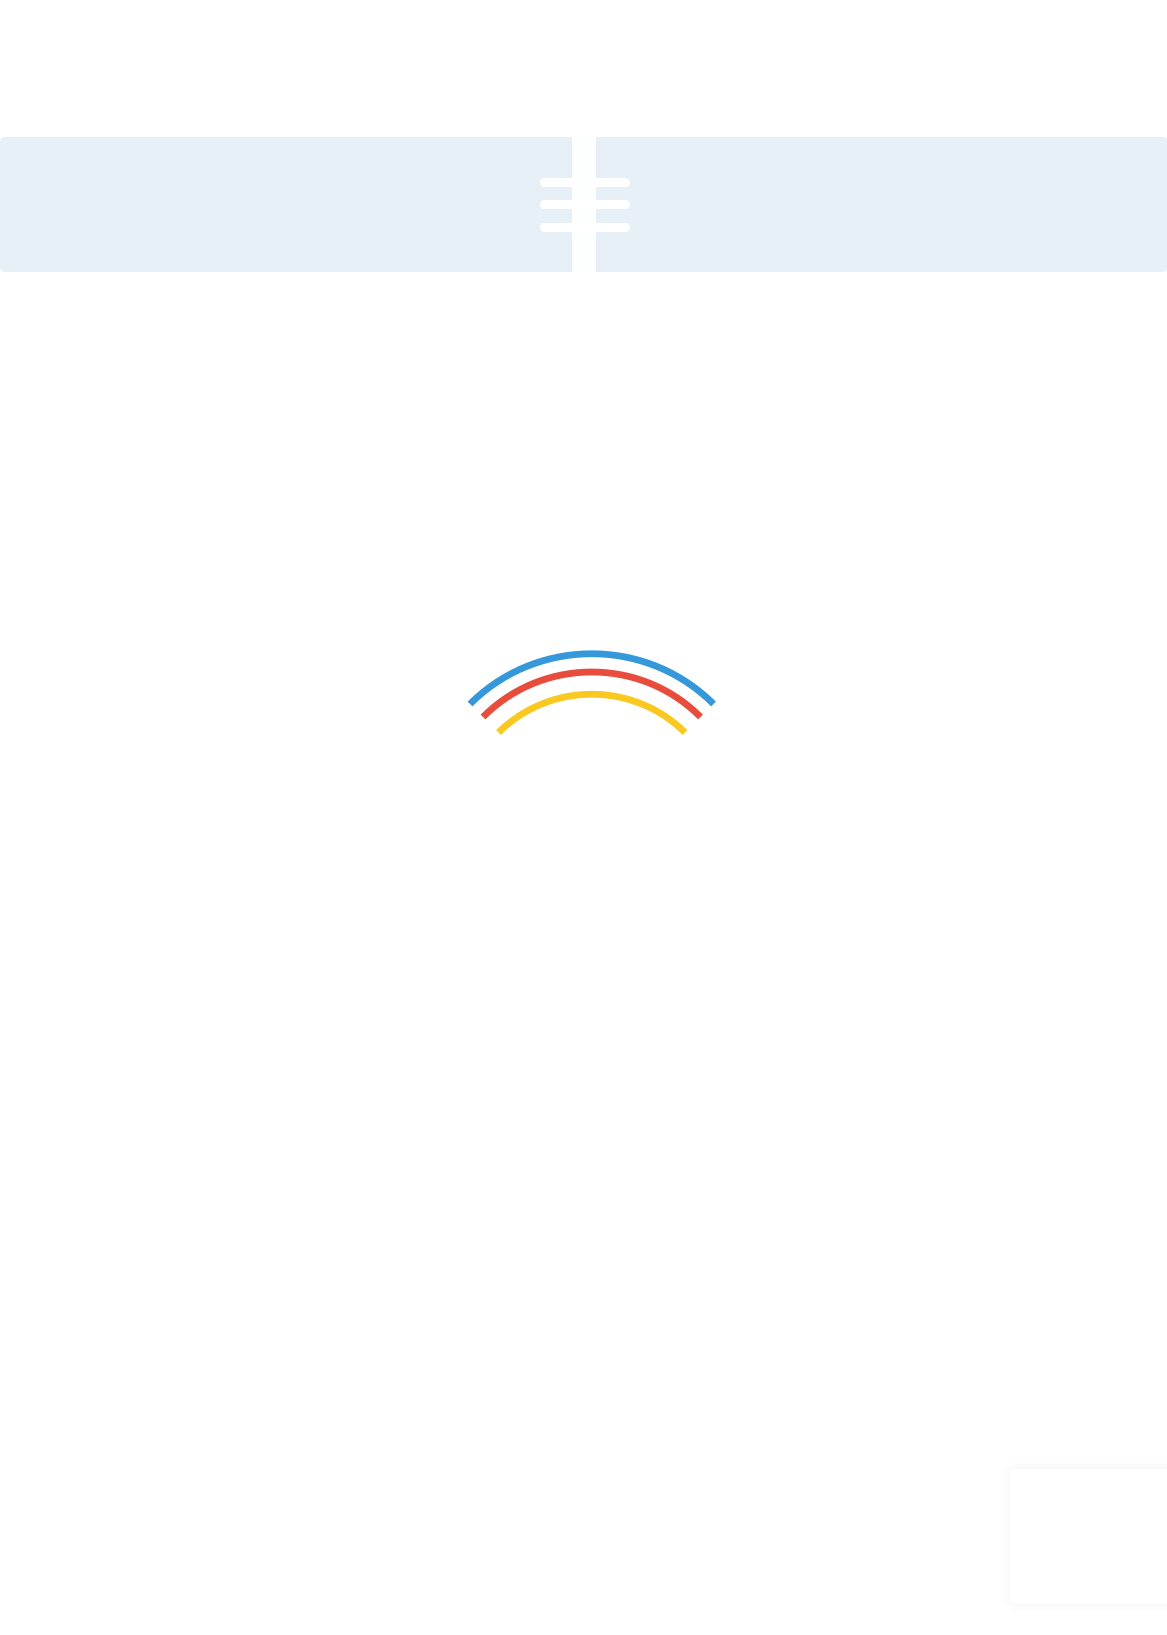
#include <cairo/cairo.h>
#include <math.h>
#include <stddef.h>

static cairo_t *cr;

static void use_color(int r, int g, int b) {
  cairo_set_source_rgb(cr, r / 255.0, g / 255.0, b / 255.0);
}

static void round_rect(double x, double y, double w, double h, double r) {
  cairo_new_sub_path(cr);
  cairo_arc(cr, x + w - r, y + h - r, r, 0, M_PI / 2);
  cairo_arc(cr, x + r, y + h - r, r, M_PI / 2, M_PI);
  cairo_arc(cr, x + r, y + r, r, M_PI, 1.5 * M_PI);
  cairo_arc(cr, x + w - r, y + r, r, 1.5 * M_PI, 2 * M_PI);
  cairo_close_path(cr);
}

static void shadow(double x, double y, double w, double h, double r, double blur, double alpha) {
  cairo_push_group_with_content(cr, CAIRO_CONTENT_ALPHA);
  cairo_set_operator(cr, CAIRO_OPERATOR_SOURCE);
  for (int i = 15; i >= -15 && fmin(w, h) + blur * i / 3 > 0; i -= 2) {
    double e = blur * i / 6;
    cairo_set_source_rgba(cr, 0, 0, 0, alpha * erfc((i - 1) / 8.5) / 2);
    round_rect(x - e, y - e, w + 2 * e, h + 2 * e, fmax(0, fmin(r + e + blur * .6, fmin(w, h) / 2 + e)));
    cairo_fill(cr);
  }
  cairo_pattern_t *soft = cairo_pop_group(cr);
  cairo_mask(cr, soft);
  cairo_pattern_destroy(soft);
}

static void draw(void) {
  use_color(255, 255, 255);
  cairo_paint(cr);
  use_color(0, 102, 160);
  round_rect(0, 137, 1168, 135, 5);
  cairo_fill(cr);
  use_color(255, 255, 255);
  round_rect(540, 178, 90, 9, 4.5);
  cairo_fill(cr);
  round_rect(540, 200, 90, 9, 4.5);
  cairo_fill(cr);
  round_rect(540, 223, 90, 9, 4.5);
  cairo_fill(cr);
  cairo_set_source_rgba(cr, 1, 1, 1, 0.9);
  cairo_rectangle(cr, 0, 137, 596, 135);
  cairo_fill(cr);
  cairo_save(cr);
  cairo_set_fill_rule(cr, CAIRO_FILL_RULE_EVEN_ODD);
  cairo_new_path(cr);
  cairo_move_to(cr, 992, 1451);
  cairo_line_to(cr, 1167, 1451);
  cairo_line_to(cr, 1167, 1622);
  cairo_line_to(cr, 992, 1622);
  cairo_close_path(cr);
  cairo_move_to(cr, 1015, 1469);
  cairo_line_to(cr, 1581, 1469);
  cairo_curve_to(cr, 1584, 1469, 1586, 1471, 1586, 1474);
  cairo_line_to(cr, 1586, 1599);
  cairo_curve_to(cr, 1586, 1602, 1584, 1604, 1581, 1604);
  cairo_line_to(cr, 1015, 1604);
  cairo_curve_to(cr, 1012, 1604, 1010, 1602, 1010, 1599);
  cairo_line_to(cr, 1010, 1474);
  cairo_curve_to(cr, 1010, 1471, 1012, 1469, 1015, 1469);
  cairo_close_path(cr);
  cairo_clip(cr);
  use_color(128, 128, 128);
  shadow(1010, 1469, 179, 135, 5, 5.5, 1);
  cairo_restore(cr);
  cairo_rectangle(cr, 572, 137, 595, 1478);
  cairo_fill(cr);
  cairo_new_path(cr);
  cairo_move_to(cr, 470, 704);
  cairo_curve_to(cr, 537, 637, 646.5, 637, 713.5, 704);
  use_color(52, 152, 219);
  cairo_set_line_width(cr, 6.8);
  cairo_stroke(cr);
  cairo_new_path(cr);
  cairo_move_to(cr, 483, 717);
  cairo_curve_to(cr, 542.5, 657, 641, 657, 700.5, 717);
  use_color(231, 76, 60);
  cairo_stroke(cr);
  cairo_new_path(cr);
  cairo_move_to(cr, 498.5, 732.5);
  cairo_curve_to(cr, 550, 681.5, 633.5, 681.5, 685, 732.5);
  use_color(249, 201, 34);
  cairo_stroke(cr);
}

int main(void) {
  cairo_surface_t *surface = cairo_image_surface_create(CAIRO_FORMAT_RGB24, 1167, 1635);
  cr = cairo_create(surface);
  cairo_font_options_t *options = cairo_font_options_create();
  cairo_font_options_set_hint_metrics(options, CAIRO_HINT_METRICS_OFF);
  cairo_font_options_set_hint_style(options, CAIRO_HINT_STYLE_NONE);
  cairo_set_font_options(cr, options);
  cairo_set_miter_limit(cr, 4);
  draw();
  cairo_surface_write_to_png(surface, "out.png");
  cairo_font_options_destroy(options);
  cairo_destroy(cr);
  cairo_surface_destroy(surface);
  return 0;
}
